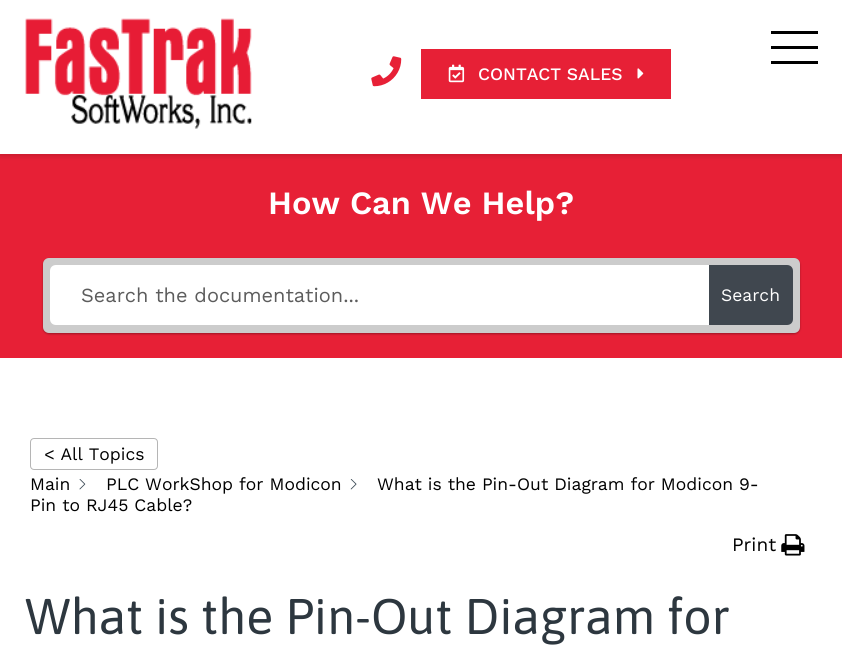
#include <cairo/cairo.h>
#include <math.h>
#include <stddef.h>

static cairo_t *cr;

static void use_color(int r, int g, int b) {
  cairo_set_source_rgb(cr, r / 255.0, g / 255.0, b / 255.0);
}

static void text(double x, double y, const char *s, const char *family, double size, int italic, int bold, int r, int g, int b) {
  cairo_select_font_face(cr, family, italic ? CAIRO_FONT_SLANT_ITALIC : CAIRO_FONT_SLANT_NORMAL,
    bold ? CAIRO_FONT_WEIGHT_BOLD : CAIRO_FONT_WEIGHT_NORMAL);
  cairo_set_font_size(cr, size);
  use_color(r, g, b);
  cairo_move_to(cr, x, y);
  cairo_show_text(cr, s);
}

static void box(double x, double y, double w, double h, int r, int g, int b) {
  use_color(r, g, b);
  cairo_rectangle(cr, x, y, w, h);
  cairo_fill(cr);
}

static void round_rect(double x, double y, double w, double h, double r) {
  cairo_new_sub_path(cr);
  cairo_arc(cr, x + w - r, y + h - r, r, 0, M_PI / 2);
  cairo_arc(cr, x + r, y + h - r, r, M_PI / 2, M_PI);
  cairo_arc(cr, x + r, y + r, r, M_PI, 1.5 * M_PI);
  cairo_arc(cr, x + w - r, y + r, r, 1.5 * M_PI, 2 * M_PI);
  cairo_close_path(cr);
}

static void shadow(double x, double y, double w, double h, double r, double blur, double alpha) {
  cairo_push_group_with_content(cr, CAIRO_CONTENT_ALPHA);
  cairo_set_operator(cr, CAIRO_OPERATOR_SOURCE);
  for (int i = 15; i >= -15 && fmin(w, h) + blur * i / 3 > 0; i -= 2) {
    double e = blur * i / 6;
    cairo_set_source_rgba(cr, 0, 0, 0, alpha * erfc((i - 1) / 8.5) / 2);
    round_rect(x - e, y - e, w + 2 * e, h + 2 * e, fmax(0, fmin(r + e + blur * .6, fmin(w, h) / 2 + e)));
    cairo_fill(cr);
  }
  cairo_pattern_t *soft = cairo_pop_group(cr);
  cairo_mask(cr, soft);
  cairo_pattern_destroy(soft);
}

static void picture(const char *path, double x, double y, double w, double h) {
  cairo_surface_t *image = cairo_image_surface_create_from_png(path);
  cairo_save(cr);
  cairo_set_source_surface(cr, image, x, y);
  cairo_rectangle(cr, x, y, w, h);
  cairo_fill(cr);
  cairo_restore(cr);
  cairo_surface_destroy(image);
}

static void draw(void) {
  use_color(255, 255, 255);
  cairo_paint(cr);
  box(0, 154, 842, 204, 231, 32, 54);
  use_color(0, 0, 0);
  shadow(0, 3, 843, 153, 0, 2.5, 0.15);
  box(0, 0, 842, 154, 255, 255, 255);
  picture("img_01.png", 25, 18, 227, 111);
  box(771, 31, 47, 3, 0, 0, 0);
  box(771, 46, 47, 3, 0, 0, 0);
  box(771, 61, 47, 3, 0, 0, 0);
  picture("img_02.png", 371, 56, 31, 31);
  box(421, 49, 250, 50, 231, 32, 54);
  picture("img_03.png", 448, 64, 17, 19);
  picture("img_04.png", 637, 68, 7, 11);
  use_color(0, 0, 0);
  shadow(43, 259, 757, 75, 6, 1, 0.32);
  use_color(204, 204, 204);
  round_rect(43, 258, 757, 75, 6);
  cairo_fill(cr);
  use_color(255, 255, 255);
  cairo_new_path(cr);
  cairo_move_to(cr, 56, 265);
  cairo_line_to(cr, 709, 265);
  cairo_line_to(cr, 709, 325);
  cairo_line_to(cr, 56, 325);
  cairo_curve_to(cr, 52.5, 325, 50, 322.5, 50, 319);
  cairo_line_to(cr, 50, 271);
  cairo_curve_to(cr, 50, 267.5, 52.5, 265, 56, 265);
  cairo_close_path(cr);
  cairo_fill(cr);
  use_color(64, 71, 79);
  cairo_new_path(cr);
  cairo_move_to(cr, 709, 265);
  cairo_line_to(cr, 787, 265);
  cairo_curve_to(cr, 790.5, 265, 793, 267.5, 793, 271);
  cairo_line_to(cr, 793, 319);
  cairo_curve_to(cr, 793, 322.5, 790.5, 325, 787, 325);
  cairo_line_to(cr, 709, 325);
  cairo_close_path(cr);
  cairo_fill(cr);
  round_rect(30.5, 438.5, 127, 31, 3.5);
  use_color(181, 181, 181);
  cairo_set_line_width(cr, 1);
  cairo_stroke(cr);
  picture("img_05.png", 79, 479, 7, 11);
  picture("img_06.png", 350, 479, 7, 11);
  picture("img_07.png", 781, 534, 24, 22);
  text(478, 80, "CONTACT SALES", "Work Sans Medium", 17.5, 0, 0, 255, 255, 255);
  text(268, 214, "How Can We Help?", "Work Sans SemiBold", 32.5, 0, 0, 255, 255, 255);
  text(81, 302, "Search the documentation...", "Work Sans", 20, 0, 0, 92, 92, 92);
  text(721, 301, "Search", "Work Sans", 17.5, 0, 0, 255, 255, 255);
  text(44, 460, "< All Topics", "Work Sans", 17.5, 0, 0, 0, 0, 0);
  text(30, 490, "Main", "Work Sans", 17.5, 0, 0, 0, 0, 0);
  text(106, 490, "PLC WorkShop for Modicon", "Work Sans", 17.5, 0, 0, 0, 0, 0);
  text(377, 490, "What is the Pin-Out Diagram for Modicon 9-", "Work Sans", 17.5, 0, 0, 0, 0, 0);
  text(30, 511, "Pin to RJ45 Cable?", "Work Sans", 17.5, 0, 0, 0, 0, 0);
  text(732, 551, "Print", "Work Sans", 19, 0, 0, 0, 0, 0);
  text(25, 634, "What is the Pin-Out Diagram for", "Asap", 50, 0, 0, 45, 55, 63);
}

int main(void) {
  cairo_surface_t *surface = cairo_image_surface_create(CAIRO_FORMAT_RGB24, 842, 650);
  cr = cairo_create(surface);
  cairo_font_options_t *options = cairo_font_options_create();
  cairo_font_options_set_hint_metrics(options, CAIRO_HINT_METRICS_OFF);
  cairo_font_options_set_hint_style(options, CAIRO_HINT_STYLE_NONE);
  cairo_set_font_options(cr, options);
  cairo_set_miter_limit(cr, 4);
  draw();
  cairo_surface_write_to_png(surface, "out.png");
  cairo_font_options_destroy(options);
  cairo_destroy(cr);
  cairo_surface_destroy(surface);
  return 0;
}
